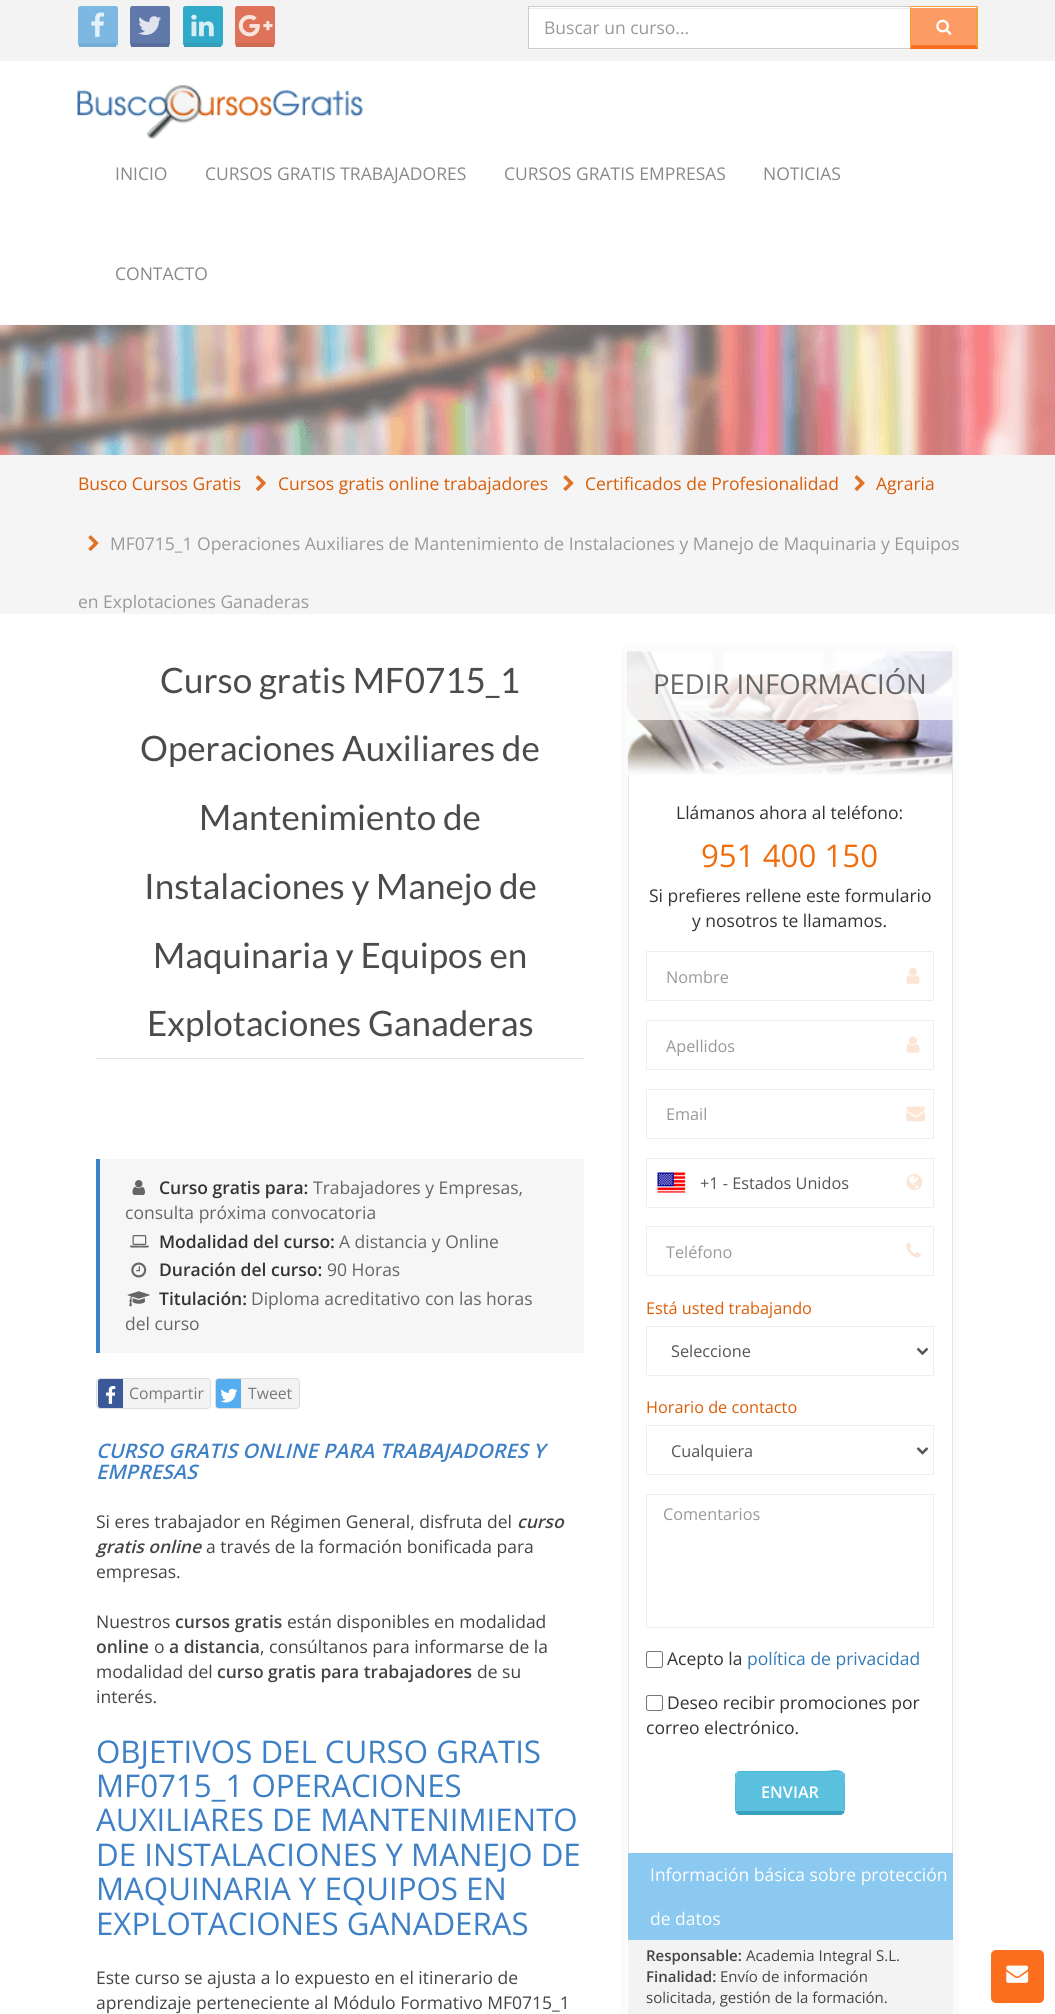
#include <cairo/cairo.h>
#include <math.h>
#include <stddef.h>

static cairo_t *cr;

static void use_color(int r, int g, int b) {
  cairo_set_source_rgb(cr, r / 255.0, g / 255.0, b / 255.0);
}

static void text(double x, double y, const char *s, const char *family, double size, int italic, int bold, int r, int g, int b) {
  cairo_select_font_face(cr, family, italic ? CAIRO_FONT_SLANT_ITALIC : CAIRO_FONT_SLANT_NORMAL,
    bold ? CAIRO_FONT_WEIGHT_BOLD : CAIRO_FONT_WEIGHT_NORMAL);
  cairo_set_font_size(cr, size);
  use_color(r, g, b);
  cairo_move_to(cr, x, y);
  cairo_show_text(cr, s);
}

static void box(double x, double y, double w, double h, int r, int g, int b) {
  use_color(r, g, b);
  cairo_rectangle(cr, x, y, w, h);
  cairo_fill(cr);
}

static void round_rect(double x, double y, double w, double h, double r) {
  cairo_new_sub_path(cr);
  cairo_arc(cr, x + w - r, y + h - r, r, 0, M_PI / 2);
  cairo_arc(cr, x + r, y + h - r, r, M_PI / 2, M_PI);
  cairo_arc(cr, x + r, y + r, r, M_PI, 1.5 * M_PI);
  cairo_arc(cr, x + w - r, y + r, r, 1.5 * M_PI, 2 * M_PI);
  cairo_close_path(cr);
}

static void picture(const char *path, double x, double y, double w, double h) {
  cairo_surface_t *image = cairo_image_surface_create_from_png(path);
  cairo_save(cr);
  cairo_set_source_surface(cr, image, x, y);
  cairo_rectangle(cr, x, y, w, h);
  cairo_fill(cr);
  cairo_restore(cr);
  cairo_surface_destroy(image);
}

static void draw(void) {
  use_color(250, 250, 250);
  cairo_paint(cr);
  box(0, 0, 1055, 61, 243, 243, 243);
  use_color(124, 184, 225);
  round_rect(78, 6, 40, 40, 2.5);
  cairo_fill(cr);
  box(79, 43, 37, 4, 115, 173, 213);
  picture("img_01.png", 91, 12, 14, 25);
  use_color(96, 120, 170);
  round_rect(130, 6, 40, 40, 2.5);
  cairo_fill(cr);
  box(131, 43, 38, 4, 89, 110, 155);
  picture("img_02.png", 138, 16, 23, 19);
  use_color(49, 169, 200);
  round_rect(183, 6, 40, 40, 2.5);
  cairo_fill(cr);
  box(184, 43, 37, 4, 50, 158, 185);
  picture("img_03.png", 191, 14, 23, 23);
  use_color(222, 115, 89);
  round_rect(235, 6, 40, 40, 2.5);
  cairo_fill(cr);
  box(236, 43, 38, 4, 205, 106, 83);
  picture("img_04.png", 238, 14, 35, 23);
  box(529, 7, 448, 41, 255, 255, 255);
  box(529, 8, 381, 1, 236, 236, 236);
  cairo_rectangle(cr, 528.5, 6.5, 449, 42);
  use_color(204, 204, 204);
  cairo_set_line_width(cr, 1);
  cairo_stroke(cr);
  box(911, 8, 65, 37, 252, 155, 99);
  box(910, 6, 68, 1, 238, 162, 54);
  cairo_new_path(cr);
  cairo_move_to(cr, 978, 6);
  cairo_line_to(cr, 978, 49);
  cairo_line_to(cr, 976, 45);
  cairo_line_to(cr, 976, 8);
  cairo_close_path(cr);
  cairo_fill(cr);
  use_color(251, 110, 29);
  cairo_new_path(cr);
  cairo_move_to(cr, 978, 49);
  cairo_line_to(cr, 910, 49);
  cairo_line_to(cr, 911, 45);
  cairo_line_to(cr, 976, 45);
  cairo_close_path(cr);
  cairo_fill(cr);
  use_color(238, 162, 54);
  cairo_new_path(cr);
  cairo_move_to(cr, 910, 49);
  cairo_line_to(cr, 910, 6);
  cairo_line_to(cr, 911, 8);
  cairo_line_to(cr, 911, 45);
  cairo_close_path(cr);
  cairo_fill(cr);
  picture("img_05.png", 936, 19, 16, 16);
  box(0, 61, 1055, 263, 255, 255, 255);
  picture("img_06.png", 77, 84, 286, 55);
  picture("img_07.png", 0, 325, 1055, 130);
  box(0, 614, 1055, 1400, 255, 255, 255);
  box(0, 455, 1055, 159, 245, 245, 245);
  picture("img_08.png", 255, 475, 11, 16);
  picture("img_09.png", 563, 475, 11, 16);
  picture("img_10.png", 854, 475, 11, 16);
  picture("img_09.png", 88, 535, 11, 16);
  box(96, 1058, 488, 1, 225, 225, 225);
  box(100, 1159, 484, 194, 246, 246, 246);
  box(96, 1159, 4, 194, 62, 128, 198);
  picture("img_11.png", 132, 1180, 13, 15);
  picture("img_12.png", 130, 1235, 19, 13);
  picture("img_13.png", 131, 1262, 16, 16);
  picture("img_14.png", 127, 1291, 23, 16);
  use_color(243, 243, 243);
  round_rect(96.5, 1378.5, 114, 30, 3.5);
  cairo_fill_preserve(cr);
  use_color(221, 221, 221);
  cairo_stroke(cr);
  use_color(59, 89, 152);
  cairo_new_path(cr);
  cairo_move_to(cr, 100.5, 1379);
  cairo_line_to(cr, 123, 1379);
  cairo_line_to(cr, 123, 1408);
  cairo_line_to(cr, 100.5, 1408);
  cairo_curve_to(cr, 99, 1408, 98, 1407, 98, 1405.5);
  cairo_line_to(cr, 98, 1381.5);
  cairo_curve_to(cr, 98, 1380, 99, 1379, 100.5, 1379);
  cairo_close_path(cr);
  cairo_fill(cr);
  picture("img_15.png", 106, 1386, 10, 18);
  use_color(243, 243, 243);
  round_rect(215.5, 1378.5, 84, 30, 3.5);
  cairo_fill_preserve(cr);
  use_color(221, 221, 221);
  cairo_stroke(cr);
  use_color(85, 172, 238);
  cairo_new_path(cr);
  cairo_move_to(cr, 218.5, 1379);
  cairo_line_to(cr, 241, 1379);
  cairo_line_to(cr, 241, 1408);
  cairo_line_to(cr, 218.5, 1408);
  cairo_curve_to(cr, 217, 1408, 216, 1407, 216, 1405.5);
  cairo_line_to(cr, 216, 1381.5);
  cairo_curve_to(cr, 216, 1380, 217, 1379, 218.5, 1379);
  cairo_close_path(cr);
  cairo_fill(cr);
  picture("img_16.png", 220, 1388, 18, 15);
  cairo_rectangle(cr, 628.5, 651.5, 324, 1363);
  use_color(224, 229, 233);
  cairo_stroke(cr);
  round_rect(624, 648, 332, 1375, 3);
  use_color(251, 251, 252);
  cairo_set_line_width(cr, 6);
  cairo_stroke(cr);
  picture("img_17.png", 627, 651, 326, 124);
  cairo_set_source_rgba(cr, 1, 1, 1, 0.8);
  cairo_rectangle(cr, 628, 651, 325, 69);
  cairo_fill(cr);
  round_rect(646.5, 951.5, 287, 49, 0.5);
  use_color(238, 238, 238);
  cairo_set_line_width(cr, 1);
  cairo_stroke(cr);
  picture("img_18.png", 906, 967, 14, 17);
  round_rect(646.5, 1020.5, 287, 49, 0.5);
  cairo_stroke(cr);
  picture("img_19.png", 906, 1036, 14, 17);
  round_rect(646.5, 1089.5, 287, 49, 0.5);
  cairo_stroke(cr);
  picture("img_20.png", 906, 1106, 19, 16);
  round_rect(646.5, 1158.5, 287, 49, 0.5);
  cairo_stroke(cr);
  picture("img_21.png", 657, 1172, 29, 21);
  picture("img_22.png", 906, 1174, 17, 16);
  round_rect(646.5, 1226.5, 287, 49, 0.5);
  cairo_stroke(cr);
  picture("img_23.png", 906, 1242, 15, 16);
  round_rect(646.5, 1326.5, 287, 49, 0.5);
  cairo_stroke(cr);
  cairo_new_path(cr);
  cairo_move_to(cr, 917.5, 1348.5);
  cairo_line_to(cr, 922.5, 1353.5);
  cairo_line_to(cr, 927.5, 1348.5);
  use_color(85, 85, 85);
  cairo_set_line_width(cr, 2.5);
  cairo_stroke(cr);
  round_rect(646.5, 1425.5, 287, 49, 0.5);
  use_color(238, 238, 238);
  cairo_set_line_width(cr, 1);
  cairo_stroke(cr);
  cairo_new_path(cr);
  cairo_move_to(cr, 917.5, 1448);
  cairo_line_to(cr, 922.5, 1453);
  cairo_line_to(cr, 927.5, 1448);
  use_color(85, 85, 85);
  cairo_set_line_width(cr, 2.5);
  cairo_stroke(cr);
  round_rect(646.5, 1494.5, 287, 133, 0.5);
  use_color(238, 238, 238);
  cairo_set_line_width(cr, 1);
  cairo_stroke(cr);
  round_rect(646.5, 1651.5, 16, 16, 2);
  use_color(118, 118, 118);
  cairo_stroke(cr);
  round_rect(646.5, 1695.5, 16, 15, 2);
  cairo_stroke(cr);
  use_color(91, 192, 222);
  cairo_new_path(cr);
  cairo_move_to(cr, 740, 1772);
  cairo_line_to(cr, 840, 1772);
  cairo_curve_to(cr, 842, 1772, 844, 1774, 844, 1776);
  cairo_line_to(cr, 844, 1810);
  cairo_curve_to(cr, 844, 1811, 842, 1811, 840, 1811);
  cairo_line_to(cr, 740, 1811);
  cairo_curve_to(cr, 738, 1811, 736, 1811, 736, 1810);
  cairo_line_to(cr, 736, 1776);
  cairo_curve_to(cr, 736, 1774, 738, 1772, 740, 1772);
  cairo_close_path(cr);
  cairo_fill(cr);
  use_color(70, 184, 218);
  cairo_new_path(cr);
  cairo_move_to(cr, 740, 1772);
  cairo_line_to(cr, 737, 1773);
  cairo_line_to(cr, 736, 1773);
  cairo_line_to(cr, 738, 1771);
  cairo_line_to(cr, 824, 1771);
  cairo_curve_to(cr, 831, 1771, 839, 1768, 844, 1773);
  cairo_line_to(cr, 843, 1773);
  cairo_line_to(cr, 840, 1772);
  cairo_close_path(cr);
  cairo_fill(cr);
  cairo_new_path(cr);
  cairo_move_to(cr, 845, 1810);
  cairo_line_to(cr, 845, 1776);
  cairo_curve_to(cr, 845, 1775, 845, 1773, 844, 1773);
  cairo_line_to(cr, 843, 1773);
  cairo_curve_to(cr, 845, 1776, 844, 1784, 844, 1787);
  cairo_line_to(cr, 844, 1810);
  cairo_line_to(cr, 844, 1811);
  cairo_line_to(cr, 844, 1813);
  cairo_close_path(cr);
  cairo_fill(cr);
  use_color(57, 160, 191);
  cairo_new_path(cr);
  cairo_move_to(cr, 740, 1815);
  cairo_line_to(cr, 840, 1815);
  cairo_curve_to(cr, 842, 1815, 843, 1814, 844, 1813);
  cairo_line_to(cr, 844, 1811);
  cairo_curve_to(cr, 842, 1811, 738, 1811, 736, 1811);
  cairo_line_to(cr, 736, 1813);
  cairo_curve_to(cr, 737, 1814, 738, 1815, 740, 1815);
  cairo_close_path(cr);
  cairo_fill(cr);
  use_color(70, 184, 218);
  cairo_new_path(cr);
  cairo_move_to(cr, 735, 1776);
  cairo_line_to(cr, 735, 1810);
  cairo_line_to(cr, 736, 1813);
  cairo_line_to(cr, 736, 1811);
  cairo_line_to(cr, 736, 1810);
  cairo_line_to(cr, 736, 1787);
  cairo_curve_to(cr, 736, 1784, 735, 1776, 737, 1773);
  cairo_line_to(cr, 736, 1773);
  cairo_curve_to(cr, 735, 1773, 735, 1775, 735, 1776);
  cairo_close_path(cr);
  cairo_fill(cr);
  box(628, 1853, 325, 87, 139, 201, 241);
  box(628, 1940, 325, 74, 243, 243, 243);
  use_color(251, 110, 29);
  round_rect(991, 1950, 53, 53, 5);
  cairo_fill(cr);
  picture("img_24.png", 1006, 1965, 23, 18);
  text(544, 34, "Buscar un curso...", "Open Sans", 17.5, 0, 0, 153, 153, 153);
  text(115, 180, "INICIO", "Open Sans", 17.5, 0, 0, 136, 136, 136);
  text(205, 180, "CURSOS GRATIS TRABAJADORES", "Open Sans", 17.5, 0, 0, 136, 136, 136);
  text(504, 180, "CURSOS GRATIS EMPRESAS", "Open Sans", 17.5, 0, 0, 136, 136, 136);
  text(763, 180, "NOTICIAS", "Open Sans", 17.5, 0, 0, 136, 136, 136);
  text(115, 280, "CONTACTO", "Open Sans", 17.5, 0, 0, 136, 136, 136);
  text(78, 490, "Busco Cursos Gratis", "Open Sans", 17.5, 0, 0, 220, 92, 6);
  text(278, 490, "Cursos gratis online trabajadores", "Open Sans", 17.5, 0, 0, 220, 92, 6);
  text(585, 490, "Certificados de Profesionalidad", "Open Sans", 17.5, 0, 0, 220, 92, 6);
  text(876, 490, "Agraria", "Open Sans", 17.5, 0, 0, 220, 92, 6);
  text(110, 550, "MF0715_1 Operaciones Auxiliares de Mantenimiento de Instalaciones y Manejo de Maquinaria y Equipos", "Open Sans", 17.5, 0, 0, 153, 153, 153);
  text(78, 608, "en Explotaciones Ganaderas", "Open Sans", 17.5, 0, 0, 153, 153, 153);
  text(160, 693, "Curso gratis MF0715_1", "Lato", 35, 0, 0, 75, 75, 75);
  text(140, 761, "Operaciones Auxiliares de", "Lato", 35, 0, 0, 75, 75, 75);
  text(199, 830, "Mantenimiento de", "Lato", 35, 0, 0, 75, 75, 75);
  text(144, 899, "Instalaciones y Manejo de", "Lato", 35, 0, 0, 75, 75, 75);
  text(153, 968, "Maquinaria y Equipos en", "Lato", 35, 0, 0, 75, 75, 75);
  text(147, 1036, "Explotaciones Ganaderas", "Lato", 35, 0, 0, 75, 75, 75);
  text(159, 1194, "Curso gratis para:", "Open Sans SemiBold", 17.5, 0, 0, 51, 51, 51);
  text(313, 1194, "Trabajadores y Empresas,", "Open Sans", 17.5, 0, 0, 102, 102, 102);
  text(125, 1219, "consulta próxima convocatoria", "Open Sans", 17.5, 0, 0, 102, 102, 102);
  text(159, 1248, "Modalidad del curso:", "Open Sans SemiBold", 17.5, 0, 0, 51, 51, 51);
  text(339, 1248, "A distancia y Online", "Open Sans", 17.5, 0, 0, 102, 102, 102);
  text(159, 1276, "Duración del curso:", "Open Sans SemiBold", 17.5, 0, 0, 51, 51, 51);
  text(327, 1276, "90 Horas", "Open Sans", 17.5, 0, 0, 102, 102, 102);
  text(159, 1305, "Titulación:", "Open Sans SemiBold", 17.5, 0, 0, 51, 51, 51);
  text(251, 1305, "Diploma acreditativo con las horas", "Open Sans", 17.5, 0, 0, 102, 102, 102);
  text(125, 1330, "del curso", "Open Sans", 17.5, 0, 0, 102, 102, 102);
  text(129, 1399, "Compartir", "Open Sans", 15.75, 0, 0, 119, 119, 119);
  text(248, 1399, "Tweet", "Open Sans", 15.75, 0, 0, 119, 119, 119);
  text(96, 1458, "CURSO GRATIS ONLINE PARA TRABAJADORES Y", "Open Sans SemiBold", 20, 1, 0, 62, 128, 198);
  text(96, 1479, "EMPRESAS", "Open Sans SemiBold", 20, 1, 0, 62, 128, 198);
  text(96, 1528, "Si eres trabajador en Régimen General, disfruta del", "Open Sans", 17.5, 0, 0, 68, 68, 68);
  text(517, 1528, "curso", "Open Sans SemiBold", 17.5, 1, 0, 68, 68, 68);
  text(96, 1553, "gratis online", "Open Sans SemiBold", 17.5, 1, 0, 68, 68, 68);
  text(206, 1553, "a través de la formación bonificada para", "Open Sans", 17.5, 0, 0, 68, 68, 68);
  text(96, 1578, "empresas.", "Open Sans", 17.5, 0, 0, 68, 68, 68);
  text(96, 1628, "Nuestros", "Open Sans", 17.5, 0, 0, 68, 68, 68);
  text(175, 1628, "cursos gratis", "Open Sans SemiBold", 17.5, 0, 0, 68, 68, 68);
  text(287, 1628, "están disponibles en modalidad", "Open Sans", 17.5, 0, 0, 68, 68, 68);
  text(96, 1653, "online", "Open Sans SemiBold", 17.5, 0, 0, 68, 68, 68);
  text(154, 1653, "o", "Open Sans", 17.5, 0, 0, 68, 68, 68);
  text(169, 1653, "a distancia", "Open Sans SemiBold", 17.5, 0, 0, 68, 68, 68);
  text(260, 1653, ", consúltanos para informarse de la", "Open Sans", 17.5, 0, 0, 68, 68, 68);
  text(96, 1678, "modalidad del", "Open Sans", 17.5, 0, 0, 68, 68, 68);
  text(217, 1678, "curso gratis para trabajadores", "Open Sans SemiBold", 17.5, 0, 0, 68, 68, 68);
  text(477, 1678, "de su", "Open Sans", 17.5, 0, 0, 68, 68, 68);
  text(96, 1703, "interés.", "Open Sans", 17.5, 0, 0, 68, 68, 68);
  text(96, 1763, "OBJETIVOS DEL CURSO GRATIS", "Open Sans", 31.25, 0, 0, 62, 128, 198);
  text(96, 1797, "MF0715_1 OPERACIONES", "Open Sans", 31.25, 0, 0, 62, 128, 198);
  text(96, 1831, "AUXILIARES DE MANTENIMIENTO", "Open Sans", 31.25, 0, 0, 62, 128, 198);
  text(96, 1866, "DE INSTALACIONES Y MANEJO DE", "Open Sans", 31.25, 0, 0, 62, 128, 198);
  text(96, 1900, "MAQUINARIA Y EQUIPOS EN", "Open Sans", 31.25, 0, 0, 62, 128, 198);
  text(96, 1935, "EXPLOTACIONES GANADERAS", "Open Sans", 31.25, 0, 0, 62, 128, 198);
  text(96, 1984, "Este curso se ajusta a lo expuesto en el itinerario de", "Open Sans", 17.5, 0, 0, 68, 68, 68);
  text(96, 2009, "aprendizaje perteneciente al Módulo Formativo MF0715_1", "Open Sans", 17.5, 0, 0, 68, 68, 68);
  text(653, 694, "PEDIR INFORMACIÓN", "Open Sans", 27.5, 0, 0, 102, 102, 102);
  text(676, 819, "Llámanos ahora al teléfono:", "Open Sans", 17.5, 0, 0, 51, 51, 51);
  text(701, 867, "951 400 150", "Open Sans", 31.25, 0, 0, 240, 109, 14);
  text(649, 902, "Si prefieres rellene este formulario", "Open Sans", 17.5, 0, 0, 51, 51, 51);
  text(692, 927, "y nosotros te llamamos.", "Open Sans", 17.5, 0, 0, 51, 51, 51);
  text(666, 983, "Nombre", "Open Sans", 16.25, 0, 0, 153, 153, 153);
  text(666, 1052, "Apellidos", "Open Sans", 16.25, 0, 0, 153, 153, 153);
  text(666, 1120, "Email", "Open Sans", 16.25, 0, 0, 153, 153, 153);
  text(700, 1189, "+1 - Estados Unidos", "Open Sans", 16.25, 0, 0, 85, 85, 85);
  text(666, 1258, "Teléfono", "Open Sans", 16.25, 0, 0, 153, 153, 153);
  text(646, 1314, "Está usted trabajando", "Open Sans", 16.25, 0, 0, 220, 92, 6);
  text(671, 1357, "Seleccione", "Open Sans", 16.25, 0, 0, 85, 85, 85);
  text(646, 1413, "Horario de contacto", "Open Sans", 16.25, 0, 0, 220, 92, 6);
  text(671, 1457, "Cualquiera", "Open Sans", 16.25, 0, 0, 85, 85, 85);
  text(663, 1520, "Comentarios", "Open Sans", 16.25, 0, 0, 153, 153, 153);
  text(667, 1665, "Acepto la", "Open Sans", 17.5, 0, 0, 51, 51, 51);
  text(747, 1665, "política de privacidad", "Open Sans", 17.5, 0, 0, 51, 122, 183);
  text(667, 1709, "Deseo recibir promociones por", "Open Sans", 17.5, 0, 0, 51, 51, 51);
  text(646, 1734, "correo electrónico.", "Open Sans", 17.5, 0, 0, 51, 51, 51);
  text(761, 1798, "ENVIAR", "Open Sans SemiBold", 16.25, 0, 0, 255, 255, 255);
  text(650, 1881, "Información básica sobre protección", "Open Sans", 17.5, 0, 0, 255, 255, 255);
  text(650, 1925, "de datos", "Open Sans", 17.5, 0, 0, 255, 255, 255);
  text(646, 1961, "Responsable:", "Open Sans SemiBold", 15, 0, 0, 68, 68, 68);
  text(746, 1961, "Academia Integral S.L.", "Open Sans", 15, 0, 0, 68, 68, 68);
  text(646, 1982, "Finalidad:", "Open Sans SemiBold", 15, 0, 0, 68, 68, 68);
  text(720, 1982, "Envío de información", "Open Sans", 15, 0, 0, 68, 68, 68);
  text(646, 2003, "solicitada, gestión de la formación.", "Open Sans", 15, 0, 0, 68, 68, 68);
}

int main(void) {
  cairo_surface_t *surface = cairo_image_surface_create(CAIRO_FORMAT_RGB24, 1055, 2014);
  cr = cairo_create(surface);
  cairo_font_options_t *options = cairo_font_options_create();
  cairo_font_options_set_hint_metrics(options, CAIRO_HINT_METRICS_OFF);
  cairo_font_options_set_hint_style(options, CAIRO_HINT_STYLE_NONE);
  cairo_set_font_options(cr, options);
  cairo_set_miter_limit(cr, 4);
  draw();
  cairo_surface_write_to_png(surface, "out.png");
  cairo_font_options_destroy(options);
  cairo_destroy(cr);
  cairo_surface_destroy(surface);
  return 0;
}
